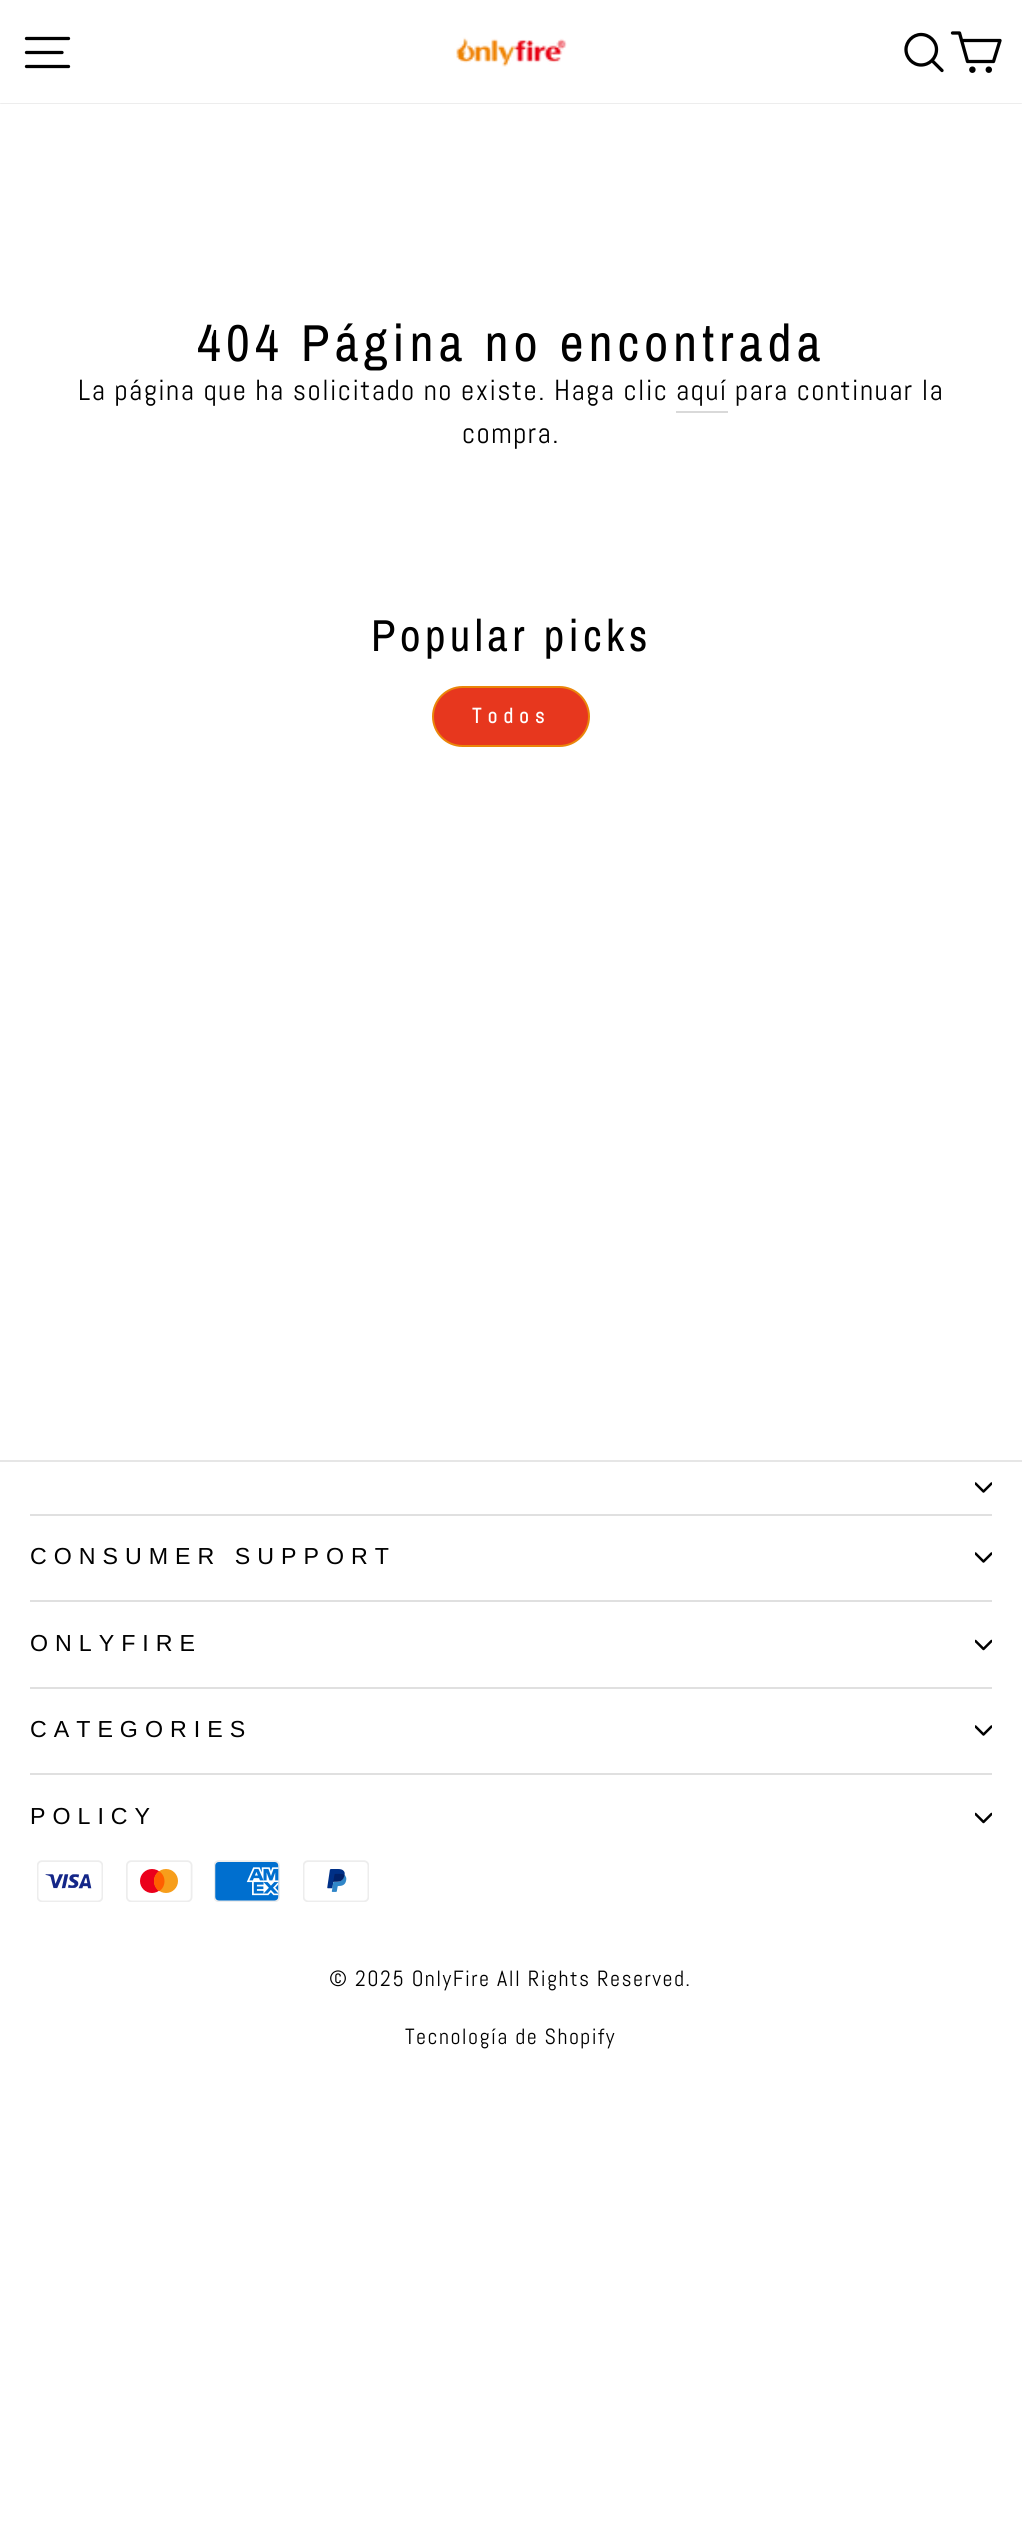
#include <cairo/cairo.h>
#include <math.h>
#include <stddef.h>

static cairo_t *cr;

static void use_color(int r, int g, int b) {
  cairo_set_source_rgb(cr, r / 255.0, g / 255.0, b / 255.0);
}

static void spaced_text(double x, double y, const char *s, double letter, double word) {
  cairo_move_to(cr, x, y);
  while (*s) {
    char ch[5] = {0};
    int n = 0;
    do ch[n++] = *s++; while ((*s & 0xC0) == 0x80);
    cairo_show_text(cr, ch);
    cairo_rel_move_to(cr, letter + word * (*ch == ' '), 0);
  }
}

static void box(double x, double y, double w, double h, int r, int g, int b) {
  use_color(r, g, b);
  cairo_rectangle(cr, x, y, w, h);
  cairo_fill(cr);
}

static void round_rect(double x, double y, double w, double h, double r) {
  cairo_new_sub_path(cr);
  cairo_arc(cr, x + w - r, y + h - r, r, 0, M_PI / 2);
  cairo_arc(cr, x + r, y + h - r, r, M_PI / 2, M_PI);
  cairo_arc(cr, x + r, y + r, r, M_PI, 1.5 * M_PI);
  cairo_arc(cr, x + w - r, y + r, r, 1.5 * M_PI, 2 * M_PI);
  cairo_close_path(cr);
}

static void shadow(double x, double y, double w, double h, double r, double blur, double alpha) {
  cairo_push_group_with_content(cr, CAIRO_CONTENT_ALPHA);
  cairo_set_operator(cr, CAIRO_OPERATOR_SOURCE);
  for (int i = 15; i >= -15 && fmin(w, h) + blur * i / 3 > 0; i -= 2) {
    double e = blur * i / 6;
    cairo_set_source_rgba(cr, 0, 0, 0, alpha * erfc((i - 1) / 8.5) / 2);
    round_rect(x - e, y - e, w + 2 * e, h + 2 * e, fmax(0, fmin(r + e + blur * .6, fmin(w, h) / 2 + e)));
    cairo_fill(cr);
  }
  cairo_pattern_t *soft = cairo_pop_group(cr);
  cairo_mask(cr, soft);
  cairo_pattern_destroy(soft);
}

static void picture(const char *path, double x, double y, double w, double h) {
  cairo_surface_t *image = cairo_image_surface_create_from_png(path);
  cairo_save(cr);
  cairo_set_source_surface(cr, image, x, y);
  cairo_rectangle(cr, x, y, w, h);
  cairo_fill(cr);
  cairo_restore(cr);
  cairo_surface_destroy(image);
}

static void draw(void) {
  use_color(255, 255, 255);
  cairo_paint(cr);
  cairo_save(cr);
  cairo_rectangle(cr, 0, 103, 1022, 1);
  cairo_clip(cr);
  use_color(0, 0, 0);
  shadow(0, 0, 1022, 103, 0, 1, 0.2);
  cairo_restore(cr);
  cairo_new_path(cr);
  cairo_move_to(cr, 26.5, 38.5);
  cairo_line_to(cr, 68.5, 38.5);
  cairo_move_to(cr, 26.5, 52.5);
  cairo_line_to(cr, 62, 52.5);
  cairo_move_to(cr, 26.5, 66.5);
  cairo_line_to(cr, 68.5, 66.5);
  use_color(0, 0, 0);
  cairo_set_line_width(cr, 3.3);
  cairo_set_line_cap(cr, CAIRO_LINE_CAP_ROUND);
  cairo_set_line_join(cr, CAIRO_LINE_JOIN_ROUND);
  cairo_stroke(cr);
  picture("img_01.png", 456, 37, 111, 30);
  cairo_new_path(cr);
  cairo_move_to(cr, 936.5, 49.5);
  cairo_curve_to(cr, 936.5, 58, 929.5, 65, 921, 65);
  cairo_curve_to(cr, 913, 65, 906, 58, 906, 49.5);
  cairo_curve_to(cr, 906, 41.5, 913, 34.5, 921, 34.5);
  cairo_curve_to(cr, 929.5, 34.5, 936.5, 41.5, 936.5, 49.5);
  cairo_close_path(cr);
  cairo_move_to(cr, 942, 70.5);
  cairo_line_to(cr, 932, 60.5);
  cairo_stroke(cr);
  cairo_new_path(cr);
  cairo_move_to(cr, 961.5, 40.5);
  cairo_line_to(cr, 1000, 40.5);
  cairo_line_to(cr, 993.5, 61.5);
  cairo_line_to(cr, 967.5, 61.5);
  cairo_line_to(cr, 959.5, 33);
  cairo_line_to(cr, 952.5, 33);
  cairo_stroke(cr);
  cairo_arc(cr, 972.4, 69.7, 1.6, 0, 2 * M_PI);
  cairo_set_line_cap(cr, CAIRO_LINE_CAP_BUTT);
  cairo_set_line_join(cr, CAIRO_LINE_JOIN_MITER);
  cairo_stroke(cr);
  cairo_arc(cr, 988.8, 69.7, 1.6, 0, 2 * M_PI);
  cairo_stroke(cr);
  box(676, 411, 52, 2, 217, 217, 217);
  use_color(231, 55, 30);
  round_rect(433, 687, 156, 59, 29.5);
  cairo_fill_preserve(cr);
  use_color(234, 133, 9);
  cairo_set_line_width(cr, 2);
  cairo_stroke(cr);
  box(0, 1460, 1022, 2, 230, 230, 230);
  cairo_save(cr);
  cairo_rectangle(cr, 975, 1479, 17, 17);
  cairo_clip(cr);
  cairo_new_path(cr);
  cairo_move_to(cr, 975.5, 1483.5);
  cairo_line_to(cr, 983.5, 1491.5);
  cairo_line_to(cr, 991.5, 1483.5);
  use_color(0, 0, 0);
  cairo_set_line_width(cr, 2.5);
  cairo_set_line_cap(cr, CAIRO_LINE_CAP_ROUND);
  cairo_set_line_join(cr, CAIRO_LINE_JOIN_ROUND);
  cairo_stroke(cr);
  cairo_restore(cr);
  box(30, 1514, 962, 2, 224, 224, 224);
  cairo_save(cr);
  cairo_rectangle(cr, 975, 1549, 17, 17);
  cairo_clip(cr);
  cairo_new_path(cr);
  cairo_move_to(cr, 975.5, 1553.5);
  cairo_line_to(cr, 983.5, 1561.5);
  cairo_line_to(cr, 991.5, 1553.5);
  use_color(0, 0, 0);
  cairo_set_line_width(cr, 2.5);
  cairo_set_line_cap(cr, CAIRO_LINE_CAP_ROUND);
  cairo_set_line_join(cr, CAIRO_LINE_JOIN_ROUND);
  cairo_stroke(cr);
  cairo_restore(cr);
  box(30, 1600, 962, 2, 224, 224, 224);
  cairo_save(cr);
  cairo_rectangle(cr, 975, 1636, 17, 18);
  cairo_clip(cr);
  cairo_new_path(cr);
  cairo_move_to(cr, 975.5, 1641);
  cairo_line_to(cr, 983.5, 1649);
  cairo_line_to(cr, 991.5, 1641);
  use_color(0, 0, 0);
  cairo_set_line_width(cr, 2.5);
  cairo_set_line_cap(cr, CAIRO_LINE_CAP_ROUND);
  cairo_set_line_join(cr, CAIRO_LINE_JOIN_ROUND);
  cairo_stroke(cr);
  cairo_restore(cr);
  box(30, 1687, 962, 2, 224, 224, 224);
  cairo_save(cr);
  cairo_rectangle(cr, 975, 1722, 17, 18);
  cairo_clip(cr);
  cairo_new_path(cr);
  cairo_move_to(cr, 975.5, 1726.5);
  cairo_line_to(cr, 983.5, 1734.5);
  cairo_line_to(cr, 991.5, 1726.5);
  use_color(0, 0, 0);
  cairo_set_line_width(cr, 2.5);
  cairo_set_line_cap(cr, CAIRO_LINE_CAP_ROUND);
  cairo_set_line_join(cr, CAIRO_LINE_JOIN_ROUND);
  cairo_stroke(cr);
  cairo_restore(cr);
  box(30, 1773, 962, 2, 224, 224, 224);
  cairo_save(cr);
  cairo_rectangle(cr, 975, 1810, 17, 17);
  cairo_clip(cr);
  cairo_new_path(cr);
  cairo_move_to(cr, 975.5, 1814);
  cairo_line_to(cr, 983.5, 1822);
  cairo_line_to(cr, 991.5, 1814);
  use_color(0, 0, 0);
  cairo_set_line_width(cr, 2.5);
  cairo_set_line_cap(cr, CAIRO_LINE_CAP_ROUND);
  cairo_set_line_join(cr, CAIRO_LINE_JOIN_ROUND);
  cairo_stroke(cr);
  cairo_restore(cr);
  picture("img_02.png", 37, 1860, 66, 42);
  picture("img_03.png", 126, 1860, 67, 42);
  picture("img_04.png", 214, 1860, 66, 42);
  picture("img_05.png", 303, 1860, 66, 42);
  cairo_select_font_face(cr, "Archivo Narrow", CAIRO_FONT_SLANT_NORMAL, CAIRO_FONT_WEIGHT_NORMAL);
  cairo_set_font_size(cr, 52);
  use_color(0, 0, 0);
  spaced_text(197, 361, "404 Página no encontrada", 5.25, 0);
  cairo_select_font_face(cr, "Abel", CAIRO_FONT_SLANT_NORMAL, CAIRO_FONT_WEIGHT_NORMAL);
  cairo_set_font_size(cr, 29);
  spaced_text(78, 400, "La página que ha solicitado no existe. Haga clic", 1.45, 0);
  spaced_text(676, 400, "aquí", 1.45, 0);
  spaced_text(735, 400, "para continuar la", 1.45, 0);
  spaced_text(462, 443, "compra.", 1.45, 0);
  cairo_select_font_face(cr, "Archivo Narrow", CAIRO_FONT_SLANT_NORMAL, CAIRO_FONT_WEIGHT_NORMAL);
  cairo_set_font_size(cr, 44.75);
  spaced_text(371, 651, "Popular picks", 4.5, 0);
  cairo_select_font_face(cr, "Abel", CAIRO_FONT_SLANT_NORMAL, CAIRO_FONT_WEIGHT_BOLD);
  cairo_set_font_size(cr, 21);
  use_color(255, 255, 255);
  spaced_text(472, 723, "Todos", 6.25, 0);
  cairo_select_font_face(cr, "Liberation Sans", CAIRO_FONT_SLANT_NORMAL, CAIRO_FONT_WEIGHT_NORMAL);
  cairo_set_font_size(cr, 23.2);
  use_color(0, 0, 0);
  spaced_text(30, 1564, "CONSUMER SUPPORT", 7, 0);
  spaced_text(30, 1651, "ONLYFIRE", 7, 0);
  spaced_text(30, 1737, "CATEGORIES", 7, 0);
  spaced_text(30, 1824, "POLICY", 7, 0);
  cairo_select_font_face(cr, "Abel", CAIRO_FONT_SLANT_NORMAL, CAIRO_FONT_WEIGHT_NORMAL);
  cairo_set_font_size(cr, 22);
  spaced_text(329, 1986, "© 2025 OnlyFire All Rights Reserved.", 1.45, 0);
  spaced_text(405, 2044, "Tecnología de Shopify", 1.45, 0);
}

int main(void) {
  cairo_surface_t *surface = cairo_image_surface_create(CAIRO_FORMAT_RGB24, 1022, 2531);
  cr = cairo_create(surface);
  cairo_font_options_t *options = cairo_font_options_create();
  cairo_font_options_set_hint_metrics(options, CAIRO_HINT_METRICS_OFF);
  cairo_font_options_set_hint_style(options, CAIRO_HINT_STYLE_NONE);
  cairo_set_font_options(cr, options);
  cairo_set_miter_limit(cr, 4);
  draw();
  cairo_surface_write_to_png(surface, "out.png");
  cairo_font_options_destroy(options);
  cairo_destroy(cr);
  cairo_surface_destroy(surface);
  return 0;
}
